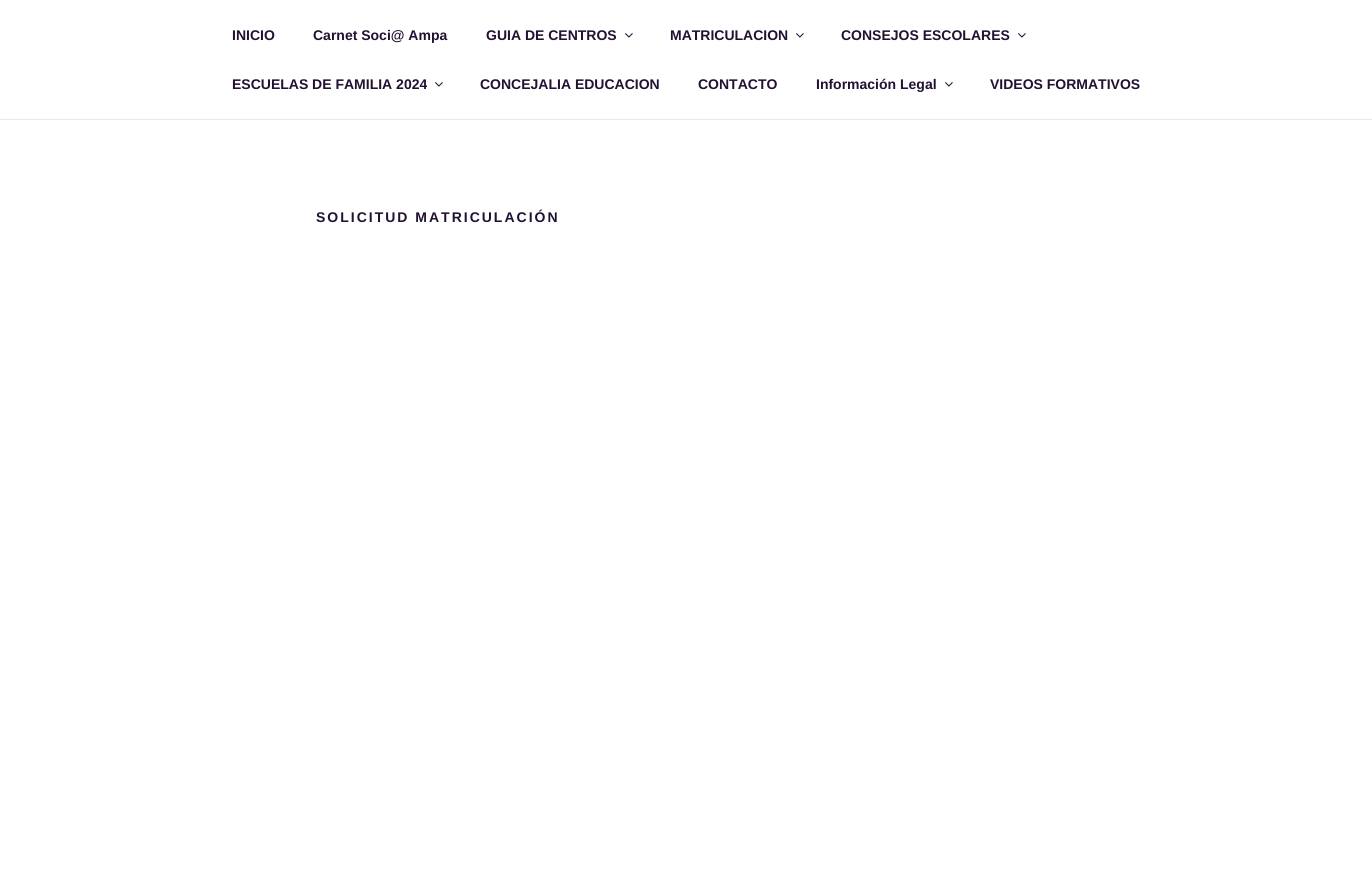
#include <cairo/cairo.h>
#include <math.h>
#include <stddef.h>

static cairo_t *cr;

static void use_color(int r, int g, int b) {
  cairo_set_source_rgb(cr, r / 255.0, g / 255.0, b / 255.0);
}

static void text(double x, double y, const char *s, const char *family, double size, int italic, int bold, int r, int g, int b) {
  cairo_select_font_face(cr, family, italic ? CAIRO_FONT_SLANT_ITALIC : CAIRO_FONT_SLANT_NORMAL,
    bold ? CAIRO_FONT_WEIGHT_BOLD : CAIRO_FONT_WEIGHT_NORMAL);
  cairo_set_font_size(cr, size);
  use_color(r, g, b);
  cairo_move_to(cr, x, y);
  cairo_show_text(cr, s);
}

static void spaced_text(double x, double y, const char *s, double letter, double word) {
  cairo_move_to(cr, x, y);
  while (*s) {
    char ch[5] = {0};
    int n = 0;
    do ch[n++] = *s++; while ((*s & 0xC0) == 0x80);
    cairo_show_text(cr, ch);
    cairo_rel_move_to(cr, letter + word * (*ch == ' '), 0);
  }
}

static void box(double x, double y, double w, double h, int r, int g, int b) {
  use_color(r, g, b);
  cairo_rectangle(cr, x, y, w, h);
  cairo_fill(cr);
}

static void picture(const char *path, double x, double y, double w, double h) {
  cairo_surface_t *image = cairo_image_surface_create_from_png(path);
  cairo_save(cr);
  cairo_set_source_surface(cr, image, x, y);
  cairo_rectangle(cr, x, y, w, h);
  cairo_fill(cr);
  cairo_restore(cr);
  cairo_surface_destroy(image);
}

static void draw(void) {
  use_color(255, 255, 255);
  cairo_paint(cr);
  box(0, 119, 1372, 1, 237, 228, 246);
  picture("img_01.png", 625, 33, 8, 5);
  picture("img_01.png", 796, 33, 8, 5);
  picture("img_01.png", 1018, 33, 8, 5);
  picture("img_01.png", 435, 82, 8, 5);
  picture("img_01.png", 945, 82, 8, 5);
  text(232, 40, "INICIO", "Liberation Sans", 14, 0, 1, 34, 17, 50);
  text(313, 40, "Carnet Soci@ Ampa", "Liberation Sans", 14, 0, 1, 34, 17, 50);
  text(486, 40, "GUIA DE CENTROS", "Liberation Sans", 14, 0, 1, 34, 17, 50);
  text(670, 40, "MATRICULACION", "Liberation Sans", 14, 0, 1, 34, 17, 50);
  text(841, 40, "CONSEJOS ESCOLARES", "Liberation Sans", 14, 0, 1, 34, 17, 50);
  text(232, 89, "ESCUELAS DE FAMILIA 2024", "Liberation Sans", 14, 0, 1, 34, 17, 50);
  text(480, 89, "CONCEJALIA EDUCACION", "Liberation Sans", 14, 0, 1, 34, 17, 50);
  text(698, 89, "CONTACTO", "Liberation Sans", 14, 0, 1, 34, 17, 50);
  text(816, 89, "Información Legal", "Liberation Sans", 14, 0, 1, 34, 17, 50);
  text(990, 89, "VIDEOS FORMATIVOS", "Liberation Sans", 14, 0, 1, 34, 17, 50);
  spaced_text(316, 222, "SOLICITUD MATRICULACIÓN", 2, 0);
}

int main(void) {
  cairo_surface_t *surface = cairo_image_surface_create(CAIRO_FORMAT_RGB24, 1372, 875);
  cr = cairo_create(surface);
  cairo_font_options_t *options = cairo_font_options_create();
  cairo_font_options_set_hint_metrics(options, CAIRO_HINT_METRICS_OFF);
  cairo_font_options_set_hint_style(options, CAIRO_HINT_STYLE_NONE);
  cairo_set_font_options(cr, options);
  cairo_set_miter_limit(cr, 4);
  draw();
  cairo_surface_write_to_png(surface, "out.png");
  cairo_font_options_destroy(options);
  cairo_destroy(cr);
  cairo_surface_destroy(surface);
  return 0;
}
